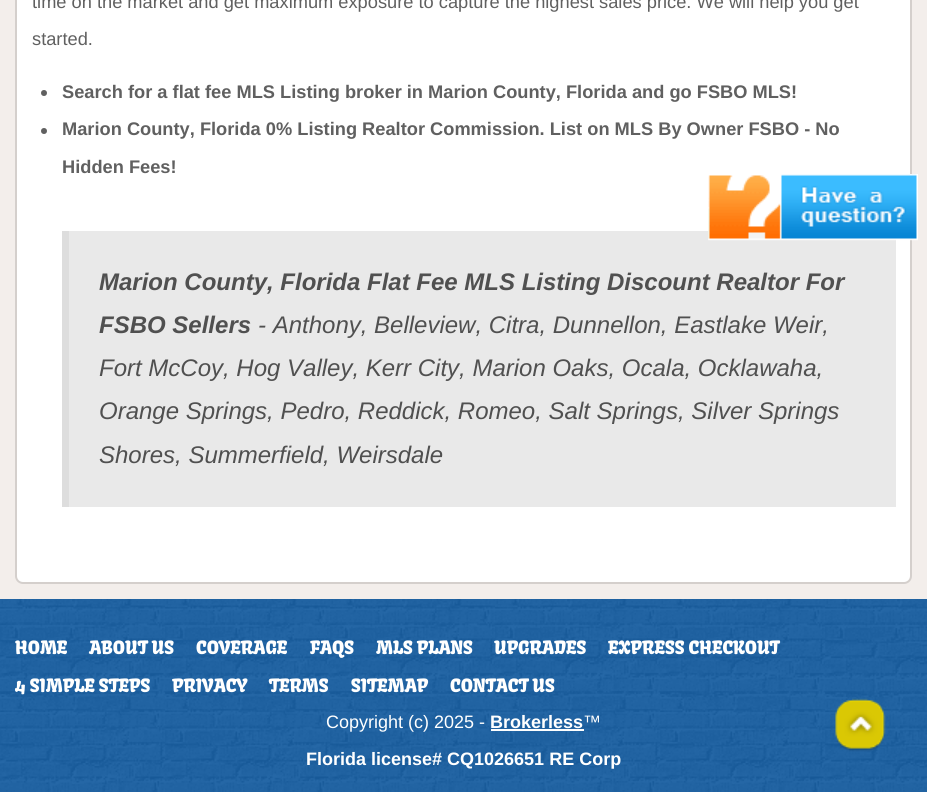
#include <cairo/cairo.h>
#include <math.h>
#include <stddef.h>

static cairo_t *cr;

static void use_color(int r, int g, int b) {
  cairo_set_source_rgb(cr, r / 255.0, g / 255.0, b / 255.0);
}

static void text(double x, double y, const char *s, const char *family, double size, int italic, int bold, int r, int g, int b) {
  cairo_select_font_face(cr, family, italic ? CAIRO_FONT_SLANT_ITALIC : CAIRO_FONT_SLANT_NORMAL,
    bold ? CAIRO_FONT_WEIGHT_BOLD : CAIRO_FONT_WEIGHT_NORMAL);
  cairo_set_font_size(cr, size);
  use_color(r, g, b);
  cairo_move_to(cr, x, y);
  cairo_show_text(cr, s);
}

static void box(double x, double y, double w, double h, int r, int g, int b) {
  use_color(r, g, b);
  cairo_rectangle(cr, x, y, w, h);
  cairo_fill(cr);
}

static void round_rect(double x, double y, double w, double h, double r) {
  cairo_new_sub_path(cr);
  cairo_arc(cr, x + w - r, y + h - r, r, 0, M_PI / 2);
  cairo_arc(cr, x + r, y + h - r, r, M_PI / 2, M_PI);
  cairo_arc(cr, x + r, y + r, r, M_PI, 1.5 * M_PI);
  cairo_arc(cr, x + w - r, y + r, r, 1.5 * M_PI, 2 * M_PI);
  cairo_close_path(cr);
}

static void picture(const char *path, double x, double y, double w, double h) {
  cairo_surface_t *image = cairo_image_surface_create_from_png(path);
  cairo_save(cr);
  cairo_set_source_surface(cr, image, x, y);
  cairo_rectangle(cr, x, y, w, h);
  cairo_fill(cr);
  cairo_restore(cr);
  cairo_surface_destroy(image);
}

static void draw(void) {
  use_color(255, 255, 255);
  cairo_paint(cr);
  picture("img_01.png", 0, 599, 927, 193);
  box(0, 0, 927, 599, 243, 238, 235);
  use_color(255, 255, 255);
  round_rect(16, -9, 895, 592, 7);
  cairo_fill_preserve(cr);
  use_color(212, 207, 204);
  cairo_stroke(cr);
  use_color(96, 96, 96);
  cairo_arc(cr, 44, 93, 3, 0, 2 * M_PI);
  cairo_fill(cr);
  cairo_arc(cr, 44, 131, 3, 0, 2 * M_PI);
  cairo_fill(cr);
  box(69, 231, 827, 276, 233, 233, 233);
  box(62, 231, 7, 276, 221, 221, 221);
  picture("img_02.png", 708, 174, 210, 67);
  picture("img_03.png", 835, 698, 51, 54);
  box(491, 729, 93, 2, 255, 255, 255);
  text(32, 8, "time on the market and get maximum exposure to capture the highest sales price. We will help you get", "Liberation Sans", 18.25, 0, 0, 96, 96, 96);
  text(32, 45, "started.", "Liberation Sans", 18.25, 0, 0, 96, 96, 96);
  text(62, 98, "Search for a flat fee MLS Listing broker in Marion County, Florida and go FSBO MLS!", "Liberation Sans", 18.25, 0, 1, 96, 96, 96);
  text(62, 135, "Marion County, Florida 0% Listing Realtor Commission. List on MLS By Owner FSBO - No", "Liberation Sans", 18.25, 0, 1, 96, 96, 96);
  text(62, 173, "Hidden Fees!", "Liberation Sans", 18.25, 0, 1, 96, 96, 96);
  text(99, 290, "Marion County, Florida Flat Fee MLS Listing Discount Realtor For", "Liberation Sans", 24, 1, 1, 80, 80, 80);
  text(99, 333, "FSBO Sellers", "Liberation Sans", 24, 1, 1, 80, 80, 80);
  text(258, 333, "- Anthony, Belleview, Citra, Dunnellon, Eastlake Weir,", "Liberation Sans", 24, 1, 0, 80, 80, 80);
  text(99, 376, "Fort McCoy, Hog Valley, Kerr City, Marion Oaks, Ocala, Ocklawaha,", "Liberation Sans", 24, 1, 0, 80, 80, 80);
  text(99, 419, "Orange Springs, Pedro, Reddick, Romeo, Salt Springs, Silver Springs", "Liberation Sans", 24, 1, 0, 80, 80, 80);
  text(99, 463, "Shores, Summerfield, Weirsdale", "Liberation Sans", 24, 1, 0, 80, 80, 80);
  text(15, 654, "HOME", "Kavoon", 18, 0, 0, 255, 255, 255);
  text(89, 654, "ABOUT US", "Kavoon", 18, 0, 0, 255, 255, 255);
  text(196, 654, "COVERAGE", "Kavoon", 18, 0, 0, 255, 255, 255);
  text(310, 654, "FAQS", "Kavoon", 18, 0, 0, 255, 255, 255);
  text(376, 654, "MLS PLANS", "Kavoon", 18, 0, 0, 255, 255, 255);
  text(494, 654, "UPGRADES", "Kavoon", 18, 0, 0, 255, 255, 255);
  text(608, 654, "EXPRESS CHECKOUT", "Kavoon", 18, 0, 0, 255, 255, 255);
  text(15, 692, "4 SIMPLE STEPS", "Kavoon", 18, 0, 0, 255, 255, 255);
  text(172, 692, "PRIVACY", "Kavoon", 18, 0, 0, 255, 255, 255);
  text(269, 692, "TERMS", "Kavoon", 18, 0, 0, 255, 255, 255);
  text(351, 692, "SITEMAP", "Kavoon", 18, 0, 0, 255, 255, 255);
  text(450, 692, "CONTACT US", "Kavoon", 18, 0, 0, 255, 255, 255);
  text(326, 728, "Copyright (c) 2025 -", "Liberation Sans", 18, 0, 0, 255, 255, 255);
  text(490, 728, "Brokerless", "Liberation Sans", 18, 0, 1, 255, 255, 255);
  text(583, 728, "™", "Liberation Sans", 18, 0, 0, 255, 255, 255);
  text(306, 765, "Florida license# CQ1026651 RE Corp", "Liberation Sans", 18, 0, 1, 255, 255, 255);
}

int main(void) {
  cairo_surface_t *surface = cairo_image_surface_create(CAIRO_FORMAT_RGB24, 927, 792);
  cr = cairo_create(surface);
  cairo_font_options_t *options = cairo_font_options_create();
  cairo_font_options_set_hint_metrics(options, CAIRO_HINT_METRICS_OFF);
  cairo_font_options_set_hint_style(options, CAIRO_HINT_STYLE_NONE);
  cairo_set_font_options(cr, options);
  cairo_set_miter_limit(cr, 4);
  draw();
  cairo_surface_write_to_png(surface, "out.png");
  cairo_font_options_destroy(options);
  cairo_destroy(cr);
  cairo_surface_destroy(surface);
  return 0;
}
